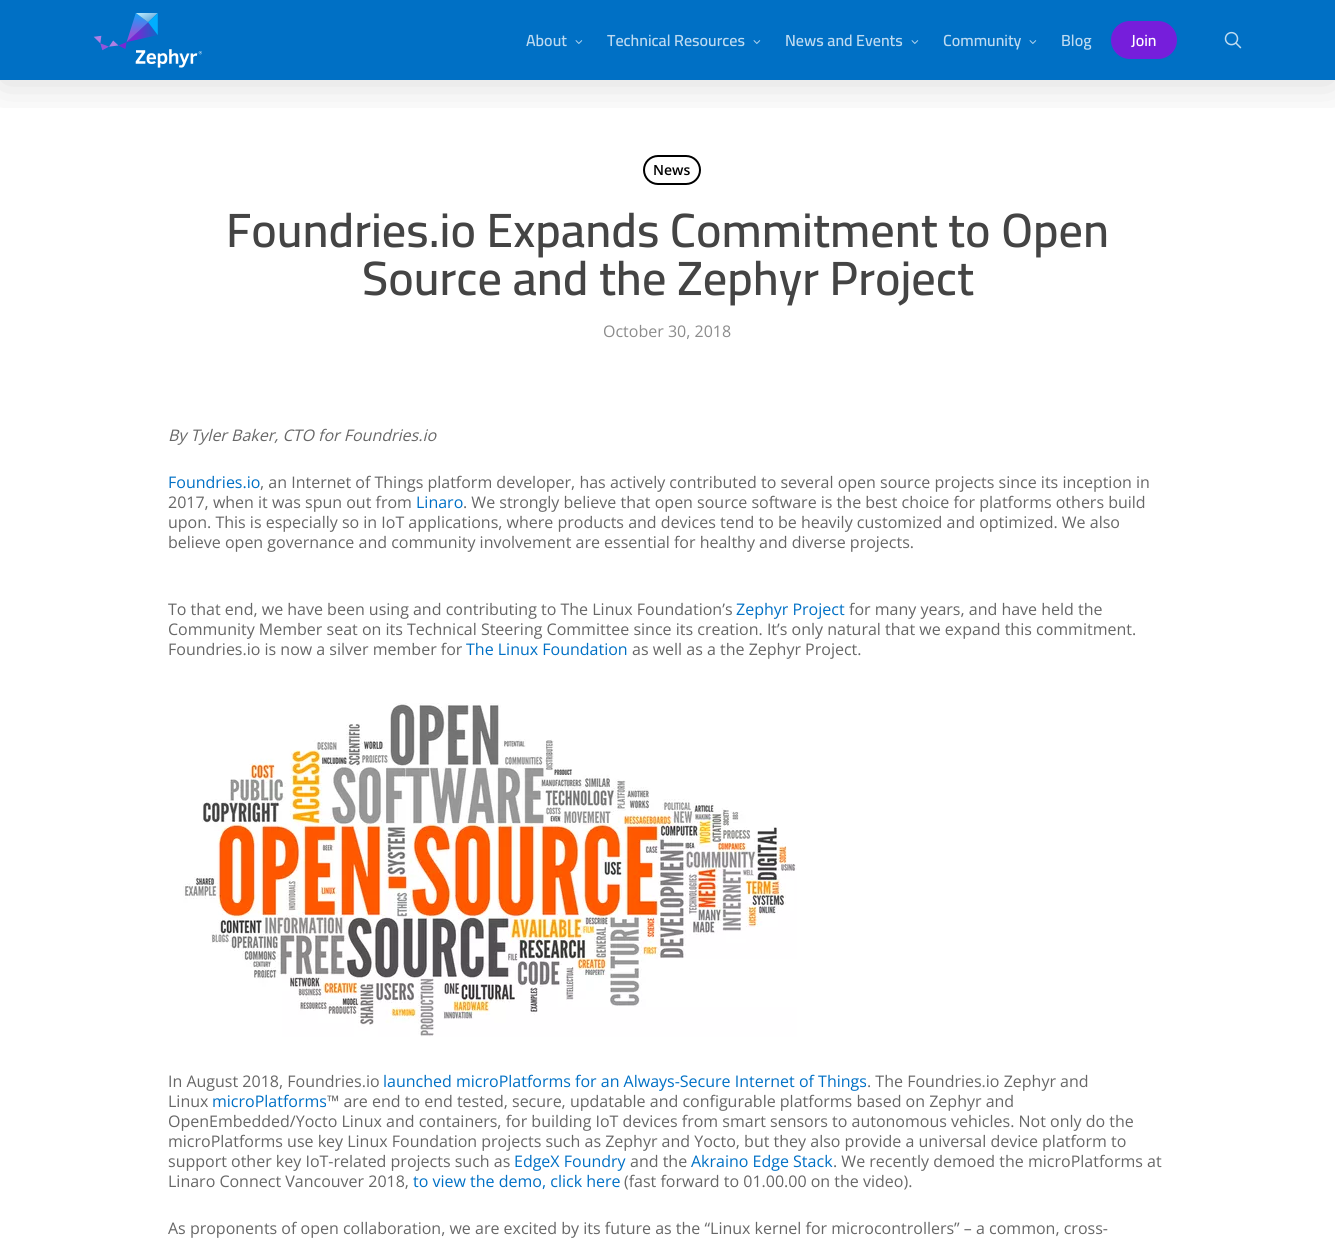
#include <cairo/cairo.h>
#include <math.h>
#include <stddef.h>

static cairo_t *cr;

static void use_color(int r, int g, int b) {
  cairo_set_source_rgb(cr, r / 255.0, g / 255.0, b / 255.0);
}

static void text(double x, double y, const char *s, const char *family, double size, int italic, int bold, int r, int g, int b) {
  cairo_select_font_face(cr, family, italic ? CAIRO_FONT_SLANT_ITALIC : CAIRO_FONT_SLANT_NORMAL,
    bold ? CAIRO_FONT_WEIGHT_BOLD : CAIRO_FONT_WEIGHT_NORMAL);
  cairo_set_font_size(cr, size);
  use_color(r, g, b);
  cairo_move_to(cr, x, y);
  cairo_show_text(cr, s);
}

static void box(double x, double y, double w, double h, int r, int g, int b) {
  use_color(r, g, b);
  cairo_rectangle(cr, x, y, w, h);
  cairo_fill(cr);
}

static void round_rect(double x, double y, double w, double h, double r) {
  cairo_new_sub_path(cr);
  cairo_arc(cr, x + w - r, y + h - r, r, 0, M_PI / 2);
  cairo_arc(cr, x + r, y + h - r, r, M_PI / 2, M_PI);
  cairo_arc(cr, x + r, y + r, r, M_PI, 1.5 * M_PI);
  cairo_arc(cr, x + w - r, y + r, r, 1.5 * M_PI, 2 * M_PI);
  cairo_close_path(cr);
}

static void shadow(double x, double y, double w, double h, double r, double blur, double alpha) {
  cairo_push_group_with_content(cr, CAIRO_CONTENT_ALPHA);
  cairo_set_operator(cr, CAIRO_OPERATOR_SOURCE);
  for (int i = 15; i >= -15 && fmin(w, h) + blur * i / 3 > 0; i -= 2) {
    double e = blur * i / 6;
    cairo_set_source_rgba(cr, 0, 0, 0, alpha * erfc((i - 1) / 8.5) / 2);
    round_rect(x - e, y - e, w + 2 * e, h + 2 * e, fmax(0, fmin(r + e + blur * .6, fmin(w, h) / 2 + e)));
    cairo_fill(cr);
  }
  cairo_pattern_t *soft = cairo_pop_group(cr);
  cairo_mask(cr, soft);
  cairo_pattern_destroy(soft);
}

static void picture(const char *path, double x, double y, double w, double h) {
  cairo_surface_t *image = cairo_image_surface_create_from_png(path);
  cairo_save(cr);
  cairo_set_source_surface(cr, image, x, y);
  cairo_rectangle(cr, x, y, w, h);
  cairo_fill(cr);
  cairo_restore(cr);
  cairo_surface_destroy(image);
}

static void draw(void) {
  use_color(255, 255, 255);
  cairo_paint(cr);
  box(0, 0, 1335, 80, 0, 112, 197);
  cairo_save(cr);
  cairo_rectangle(cr, 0, 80, 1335, 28);
  cairo_clip(cr);
  use_color(0, 0, 0);
  shadow(0, 3, 1335, 80, 0, 22.5, 0.15);
  cairo_restore(cr);
  picture("img_01.png", 93, 13, 109, 55);
  picture("img_02.png", 575, 40, 8, 4);
  picture("img_02.png", 753, 40, 8, 4);
  picture("img_02.png", 911, 40, 8, 4);
  picture("img_02.png", 1029, 40, 8, 4);
  use_color(118, 30, 219);
  round_rect(1111, 21, 66, 38, 19);
  cairo_fill(cr);
  picture("img_03.png", 1224, 31, 18, 18);
  round_rect(644, 156, 56, 28, 14);
  use_color(0, 0, 0);
  cairo_stroke(cr);
  picture("img_04.png", 183, 703, 614, 334);
  text(526, 46, "About", "Cairo SemiBold", 16, 0, 0, 191, 219, 241);
  text(607, 46, "Technical Resources", "Cairo SemiBold", 16, 0, 0, 191, 219, 241);
  text(785, 46, "News and Events", "Cairo SemiBold", 16, 0, 0, 191, 219, 241);
  text(943, 46, "Community", "Cairo SemiBold", 16, 0, 0, 191, 219, 241);
  text(1061, 46, "Blog", "Cairo SemiBold", 16, 0, 0, 191, 219, 241);
  text(1131, 46, "Join", "Cairo SemiBold", 16, 0, 0, 255, 255, 255);
  text(653, 175, "News", "Open Sans SemiBold", 14, 0, 0, 0, 0, 0);
  text(226, 247, "Foundries.io Expands Commitment to Open", "Cairo SemiBold", 48, 0, 0, 68, 68, 68);
  text(362, 295, "Source and the Zephyr Project", "Cairo SemiBold", 48, 0, 0, 68, 68, 68);
  text(603, 337, "October 30, 2018", "Open Sans", 16, 0, 0, 140, 140, 140);
  text(168, 441, "By Tyler Baker, CTO for Foundries.io", "Open Sans", 16, 1, 0, 103, 103, 103);
  text(168, 488, "Foundries.io", "Open Sans", 16, 0, 0, 0, 112, 197);
  text(260, 488, ", an Internet of Things platform developer, has actively contributed to several open source projects since its inception in", "Open Sans", 16, 0, 0, 103, 103, 103);
  text(168, 508, "2017, when it was spun out from", "Open Sans", 16, 0, 0, 103, 103, 103);
  text(416, 508, "Linaro", "Open Sans", 16, 0, 0, 0, 112, 197);
  text(463, 508, ". We strongly believe that open source software is the best choice for platforms others build", "Open Sans", 16, 0, 0, 103, 103, 103);
  text(168, 528, "upon. This is especially so in IoT applications, where products and devices tend to be heavily customized and optimized. We also", "Open Sans", 16, 0, 0, 103, 103, 103);
  text(168, 548, "believe open governance and community involvement are essential for healthy and diverse projects.", "Open Sans", 16, 0, 0, 103, 103, 103);
  text(168, 615, "To that end, we have been using and contributing to The Linux Foundation’s", "Open Sans", 16, 0, 0, 103, 103, 103);
  text(736, 615, "Zephyr Project", "Open Sans", 16, 0, 0, 0, 112, 197);
  text(849, 615, "for many years, and have held the", "Open Sans", 16, 0, 0, 103, 103, 103);
  text(168, 635, "Community Member seat on its Technical Steering Committee since its creation. It’s only natural that we expand this commitment.", "Open Sans", 16, 0, 0, 103, 103, 103);
  text(168, 655, "Foundries.io is now a silver member for", "Open Sans", 16, 0, 0, 103, 103, 103);
  text(466, 655, "The Linux Foundation", "Open Sans", 16, 0, 0, 0, 112, 197);
  text(632, 655, "as well as a the Zephyr Project.", "Open Sans", 16, 0, 0, 103, 103, 103);
  text(168, 1087, "In August 2018, Foundries.io", "Open Sans", 16, 0, 0, 103, 103, 103);
  text(383, 1087, "launched microPlatforms for an Always-Secure Internet of Things", "Open Sans", 16, 0, 0, 0, 112, 197);
  text(867, 1087, ". The Foundries.io Zephyr and", "Open Sans", 16, 0, 0, 103, 103, 103);
  text(168, 1107, "Linux", "Open Sans", 16, 0, 0, 103, 103, 103);
  text(212, 1107, "microPlatforms", "Open Sans", 16, 0, 0, 0, 112, 197);
  text(327, 1107, "™ are end to end tested, secure, updatable and configurable platforms based on Zephyr and", "Open Sans", 16, 0, 0, 103, 103, 103);
  text(168, 1127, "OpenEmbedded/Yocto Linux and containers, for building IoT devices from smart sensors to autonomous vehicles. Not only do the", "Open Sans", 16, 0, 0, 103, 103, 103);
  text(168, 1147, "microPlatforms use key Linux Foundation projects such as Zephyr and Yocto, but they also provide a universal device platform to", "Open Sans", 16, 0, 0, 103, 103, 103);
  text(168, 1167, "support other key IoT-related projects such as", "Open Sans", 16, 0, 0, 103, 103, 103);
  text(514, 1167, "EdgeX Foundry", "Open Sans", 16, 0, 0, 0, 112, 197);
  text(630, 1167, "and the", "Open Sans", 16, 0, 0, 103, 103, 103);
  text(691, 1167, "Akraino Edge Stack", "Open Sans", 16, 0, 0, 0, 112, 197);
  text(833, 1167, ". We recently demoed the microPlatforms at", "Open Sans", 16, 0, 0, 103, 103, 103);
  text(168, 1187, "Linaro Connect Vancouver 2018,", "Open Sans", 16, 0, 0, 103, 103, 103);
  text(413, 1187, "to view the demo, click here", "Open Sans", 16, 0, 0, 0, 112, 197);
  text(624, 1187, "(fast forward to 01.00.00 on the video).", "Open Sans", 16, 0, 0, 103, 103, 103);
  text(168, 1234, "As proponents of open collaboration, we are excited by its future as the “Linux kernel for microcontrollers” – a common, cross-", "Open Sans", 16, 0, 0, 103, 103, 103);
}

int main(void) {
  cairo_surface_t *surface = cairo_image_surface_create(CAIRO_FORMAT_RGB24, 1335, 1248);
  cr = cairo_create(surface);
  cairo_font_options_t *options = cairo_font_options_create();
  cairo_font_options_set_hint_metrics(options, CAIRO_HINT_METRICS_OFF);
  cairo_font_options_set_hint_style(options, CAIRO_HINT_STYLE_NONE);
  cairo_set_font_options(cr, options);
  cairo_set_miter_limit(cr, 4);
  draw();
  cairo_surface_write_to_png(surface, "out.png");
  cairo_font_options_destroy(options);
  cairo_destroy(cr);
  cairo_surface_destroy(surface);
  return 0;
}
